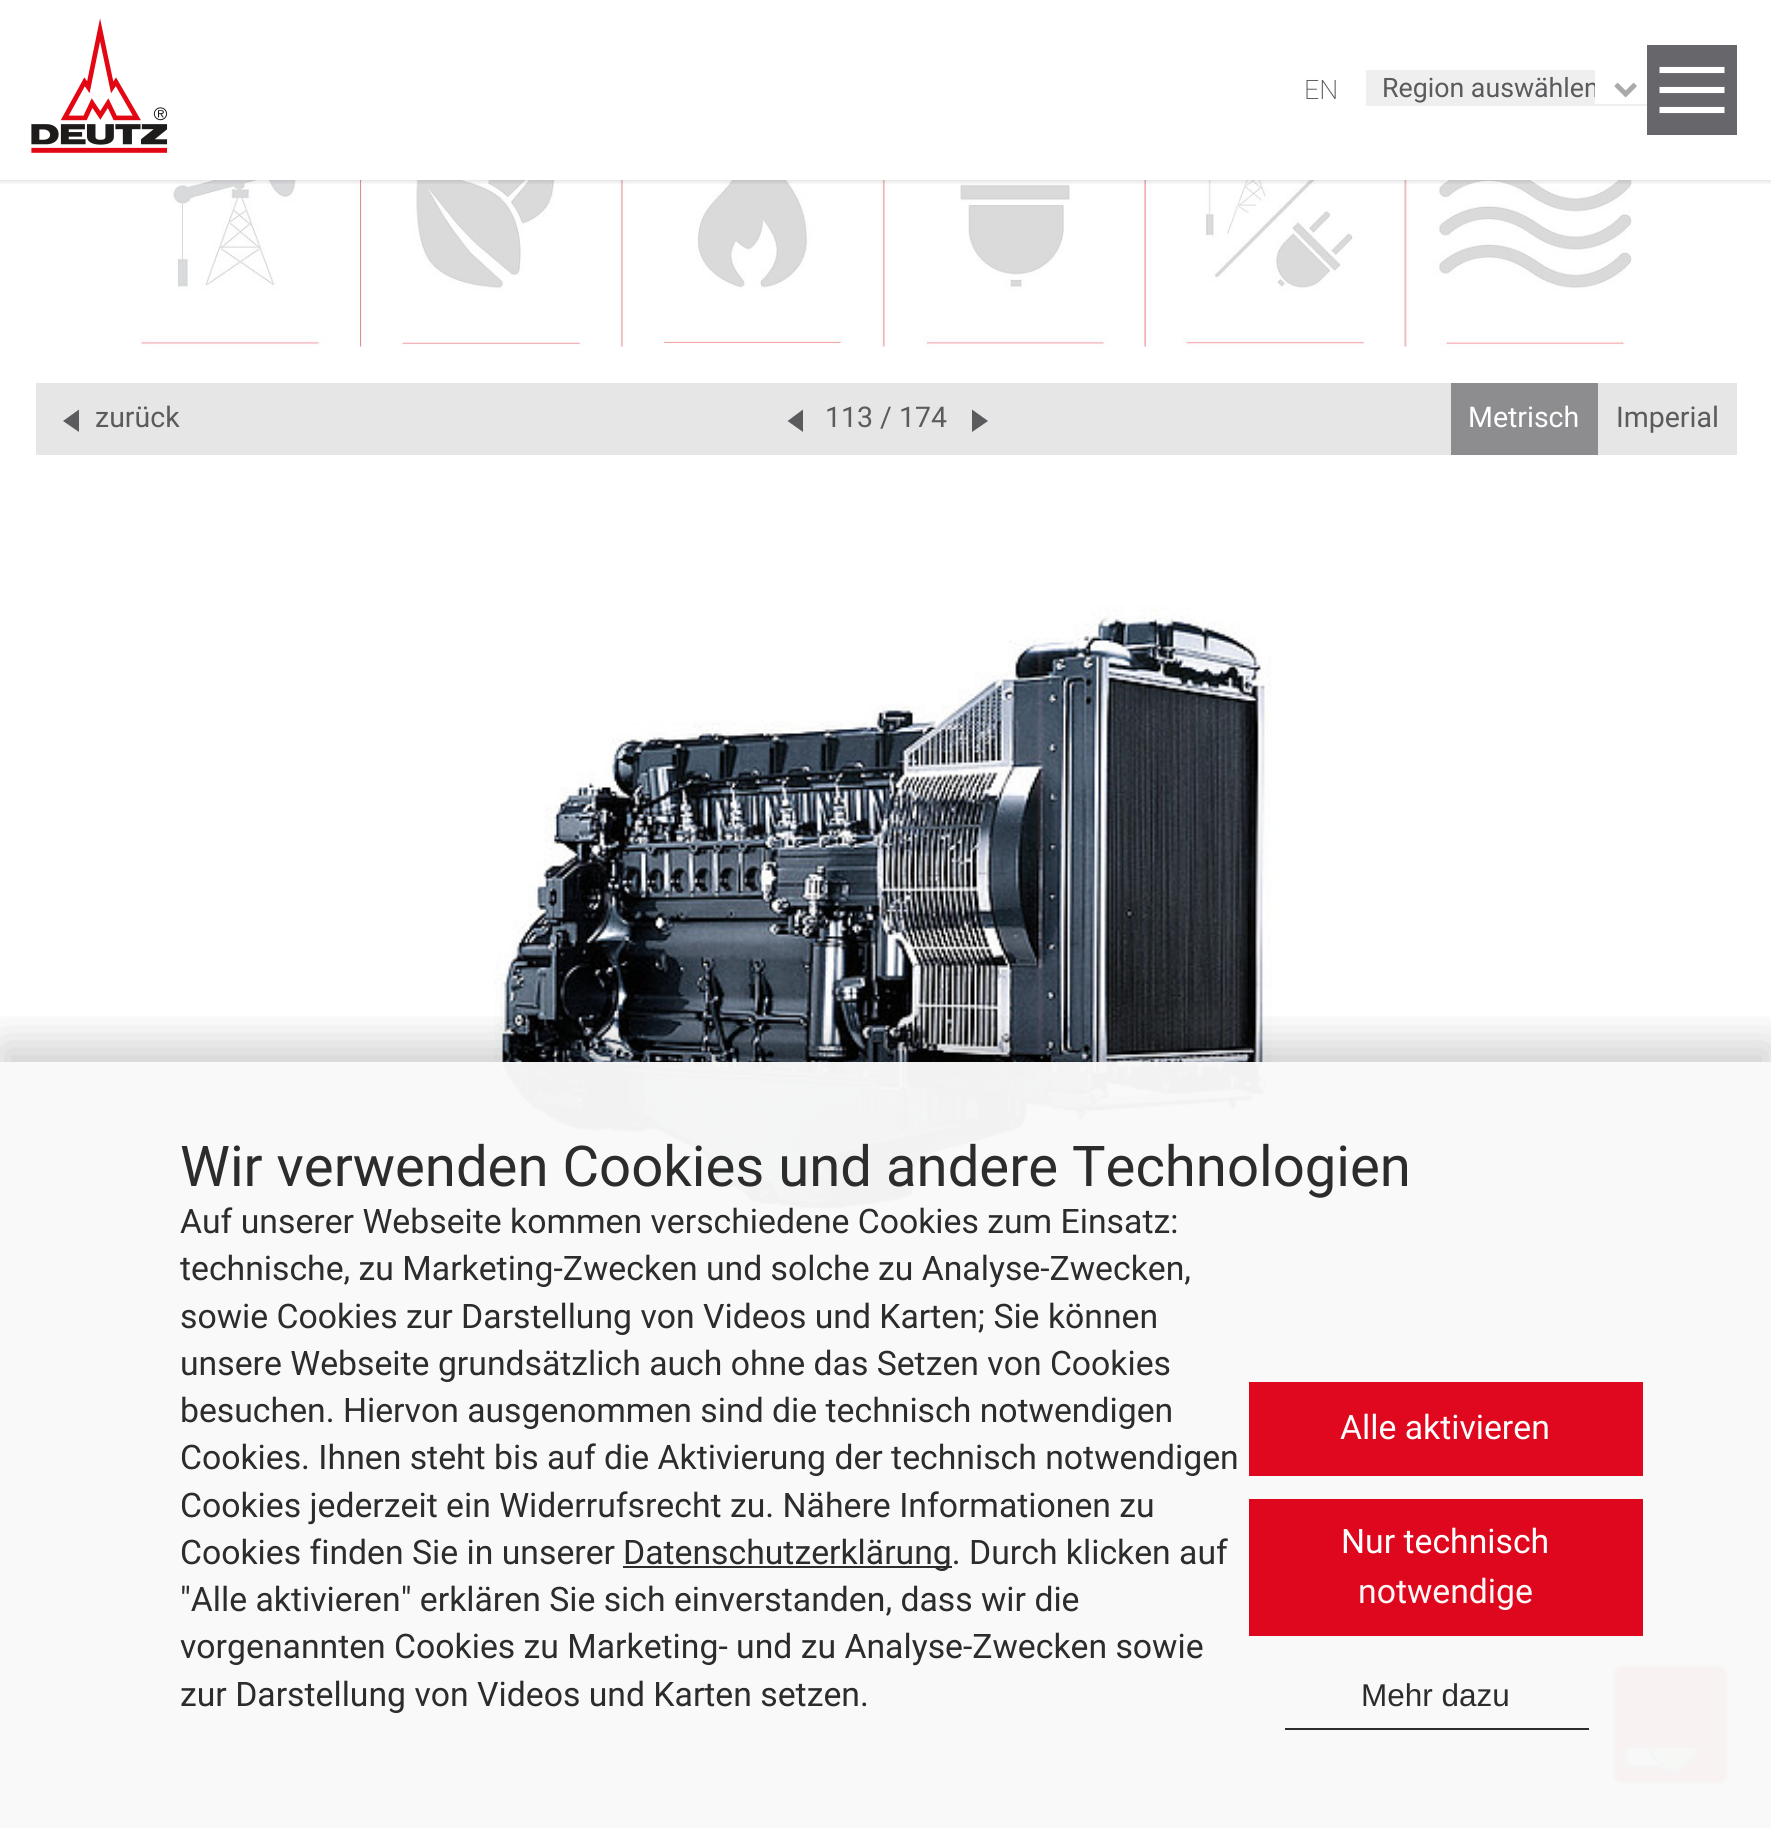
#include <cairo/cairo.h>
#include <math.h>
#include <stddef.h>

static cairo_t *cr;

static void use_color(int r, int g, int b) {
  cairo_set_source_rgb(cr, r / 255.0, g / 255.0, b / 255.0);
}

static void text(double x, double y, const char *s, const char *family, double size, int italic, int bold, int r, int g, int b) {
  cairo_select_font_face(cr, family, italic ? CAIRO_FONT_SLANT_ITALIC : CAIRO_FONT_SLANT_NORMAL,
    bold ? CAIRO_FONT_WEIGHT_BOLD : CAIRO_FONT_WEIGHT_NORMAL);
  cairo_set_font_size(cr, size);
  use_color(r, g, b);
  cairo_move_to(cr, x, y);
  cairo_show_text(cr, s);
}

static void box(double x, double y, double w, double h, int r, int g, int b) {
  use_color(r, g, b);
  cairo_rectangle(cr, x, y, w, h);
  cairo_fill(cr);
}

static void round_rect(double x, double y, double w, double h, double r) {
  cairo_new_sub_path(cr);
  cairo_arc(cr, x + w - r, y + h - r, r, 0, M_PI / 2);
  cairo_arc(cr, x + r, y + h - r, r, M_PI / 2, M_PI);
  cairo_arc(cr, x + r, y + r, r, M_PI, 1.5 * M_PI);
  cairo_arc(cr, x + w - r, y + r, r, 1.5 * M_PI, 2 * M_PI);
  cairo_close_path(cr);
}

static void shadow(double x, double y, double w, double h, double r, double blur, double alpha) {
  cairo_push_group_with_content(cr, CAIRO_CONTENT_ALPHA);
  cairo_set_operator(cr, CAIRO_OPERATOR_SOURCE);
  for (int i = 15; i >= -15 && fmin(w, h) + blur * i / 3 > 0; i -= 2) {
    double e = blur * i / 6;
    cairo_set_source_rgba(cr, 0, 0, 0, alpha * erfc((i - 1) / 8.5) / 2);
    round_rect(x - e, y - e, w + 2 * e, h + 2 * e, fmax(0, fmin(r + e + blur * .6, fmin(w, h) / 2 + e)));
    cairo_fill(cr);
  }
  cairo_pattern_t *soft = cairo_pop_group(cr);
  cairo_mask(cr, soft);
  cairo_pattern_destroy(soft);
}

static void picture(const char *path, double x, double y, double w, double h) {
  cairo_surface_t *image = cairo_image_surface_create_from_png(path);
  cairo_save(cr);
  cairo_set_source_surface(cr, image, x, y);
  cairo_rectangle(cr, x, y, w, h);
  cairo_fill(cr);
  cairo_restore(cr);
  cairo_surface_destroy(image);
}

static void draw(void) {
  use_color(255, 255, 255);
  cairo_paint(cr);
  picture("img_03.png", 140, 180, 1492, 167);
  cairo_save(cr);
  cairo_rectangle(cr, 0, 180, 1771, 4);
  cairo_clip(cr);
  use_color(2, 2, 8);
  shadow(0, 0, 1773, 180, 0, 3.5, 0.2);
  cairo_restore(cr);
  picture("img_01.png", 31, 18, 137, 135);
  box(1366, 70, 281, 36, 239, 239, 239);
  box(1647, 45, 90, 90, 103, 103, 107);
  cairo_new_path(cr);
  cairo_move_to(cr, 1659.5, 70);
  cairo_line_to(cr, 1724.5, 70);
  cairo_move_to(cr, 1659.5, 90);
  cairo_line_to(cr, 1724.5, 90);
  cairo_move_to(cr, 1659.5, 110);
  cairo_line_to(cr, 1724.5, 110);
  use_color(255, 255, 255);
  cairo_set_line_width(cr, 6.1);
  cairo_stroke(cr);
  box(36, 383, 1701, 72, 230, 230, 230);
  use_color(91, 91, 94);
  cairo_new_path(cr);
  cairo_move_to(cr, 79, 409.5);
  cairo_line_to(cr, 79, 432);
  cairo_line_to(cr, 63, 421);
  cairo_close_path(cr);
  cairo_fill(cr);
  cairo_new_path(cr);
  cairo_move_to(cr, 803, 409.5);
  cairo_line_to(cr, 803, 432);
  cairo_line_to(cr, 787.5, 421);
  cairo_close_path(cr);
  cairo_fill(cr);
  cairo_new_path(cr);
  cairo_move_to(cr, 972, 432);
  cairo_line_to(cr, 972, 409.5);
  cairo_line_to(cr, 988, 421);
  cairo_close_path(cr);
  cairo_fill(cr);
  box(1451, 383, 147, 72, 141, 141, 144);
  picture("img_04.png", 494, 606, 779, 610);
  use_color(222, 0, 23);
  round_rect(1613, 1665, 115, 119, 9);
  cairo_fill(cr);
  round_rect(1614, 1666, 113, 117, 8);
  cairo_set_source_rgba(cr, 1, 1, 1, 0.59);
  cairo_set_line_width(cr, 2);
  cairo_stroke(cr);
  picture("img_05.png", 1623, 1748, 92, 27);
  cairo_save(cr);
  cairo_rectangle(cr, 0, 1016, 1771, 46);
  cairo_clip(cr);
  use_color(0, 0, 0);
  shadow(0, 1044, 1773, 767, 0, 22.5, 0.19);
  cairo_restore(cr);
  cairo_set_source_rgba(cr, 0.976, 0.976, 0.976, 0.97);
  cairo_rectangle(cr, 0, 1062, 1771, 766);
  cairo_fill(cr);
  cairo_set_source_rgba(cr, 0.149, 0.149, 0.149, 0.97);
  cairo_rectangle(cr, 623, 1566, 329, 2);
  cairo_fill(cr);
  box(1249, 1382, 394, 94, 223, 8, 30);
  cairo_set_source_rgba(cr, 0.871, 0, 0.09, 0.97);
  cairo_rectangle(cr, 1249, 1499, 394, 137);
  cairo_fill(cr);
  box(1285, 1728, 304, 2, 45, 45, 45);
  text(1304, 99, "EN", "Roboto ExtraLight", 26.75, 0, 0, 91, 91, 94);
  text(1382, 97, "Region auswählen", "Roboto", 26.75, 0, 0, 91, 91, 94);
  box(1595, 70, 52, 34, 255, 255, 255);
  picture("img_02.png", 1614, 83, 23, 15);
  text(95, 427, "zurück", "Roboto", 28.5, 0, 0, 91, 91, 94);
  text(825, 427, "113 / 174", "Roboto", 28.5, 0, 0, 91, 91, 94);
  text(1468, 427, "Metrisch", "Roboto", 28.5, 0, 0, 255, 255, 255);
  text(1616, 427, "Imperial", "Roboto", 28.5, 0, 0, 91, 91, 94);
  text(180, 1186, "Wir verwenden Cookies und andere Technologien", "Roboto", 56.25, 0, 0, 44, 44, 44);
  text(180, 1233, "Auf unserer Webseite kommen verschiedene Cookies zum Einsatz:", "Roboto", 33.75, 0, 0, 44, 44, 44);
  text(180, 1280, "technische, zu Marketing-Zwecken und solche zu Analyse-Zwecken,", "Roboto", 33.75, 0, 0, 44, 44, 44);
  text(180, 1328, "sowie Cookies zur Darstellung von Videos und Karten; Sie können", "Roboto", 33.75, 0, 0, 44, 44, 44);
  text(180, 1375, "unsere Webseite grundsätzlich auch ohne das Setzen von Cookies", "Roboto", 33.75, 0, 0, 44, 44, 44);
  text(180, 1422, "besuchen. Hiervon ausgenommen sind die technisch notwendigen", "Roboto", 33.75, 0, 0, 44, 44, 44);
  text(180, 1469, "Cookies. Ihnen steht bis auf die Aktivierung der technisch notwendigen", "Roboto", 33.75, 0, 0, 44, 44, 44);
  text(180, 1517, "Cookies jederzeit ein Widerrufsrecht zu. Nähere Informationen zu", "Roboto", 33.75, 0, 0, 44, 44, 44);
  text(180, 1564, "Cookies finden Sie in unserer", "Roboto", 33.75, 0, 0, 44, 44, 44);
  text(623, 1564, "Datenschutzerklärung. Durch klicken auf", "Roboto", 33.75, 0, 0, 44, 44, 44);
  text(180, 1611, "\"Alle aktivieren\" erklären Sie sich einverstanden, dass wir die", "Roboto", 33.75, 0, 0, 44, 44, 44);
  text(180, 1658, "vorgenannten Cookies zu Marketing- und zu Analyse-Zwecken sowie", "Roboto", 33.75, 0, 0, 44, 44, 44);
  text(180, 1706, "zur Darstellung von Videos und Karten setzen.", "Roboto", 33.75, 0, 0, 44, 44, 44);
  text(1340, 1439, "Alle aktivieren", "Roboto", 33.75, 0, 0, 255, 255, 255);
  text(1341, 1553, "Nur technisch", "Roboto", 33.75, 0, 0, 255, 255, 255);
  text(1358, 1603, "notwendige", "Roboto", 33.75, 0, 0, 254, 248, 248);
  text(1361, 1706, "Mehr dazu", "Liberation Sans", 31.5, 0, 0, 44, 44, 44);
}

int main(void) {
  cairo_surface_t *surface = cairo_image_surface_create(CAIRO_FORMAT_RGB24, 1771, 1828);
  cr = cairo_create(surface);
  cairo_font_options_t *options = cairo_font_options_create();
  cairo_font_options_set_hint_metrics(options, CAIRO_HINT_METRICS_OFF);
  cairo_font_options_set_hint_style(options, CAIRO_HINT_STYLE_NONE);
  cairo_set_font_options(cr, options);
  cairo_set_miter_limit(cr, 4);
  draw();
  cairo_surface_write_to_png(surface, "out.png");
  cairo_font_options_destroy(options);
  cairo_destroy(cr);
  cairo_surface_destroy(surface);
  return 0;
}
